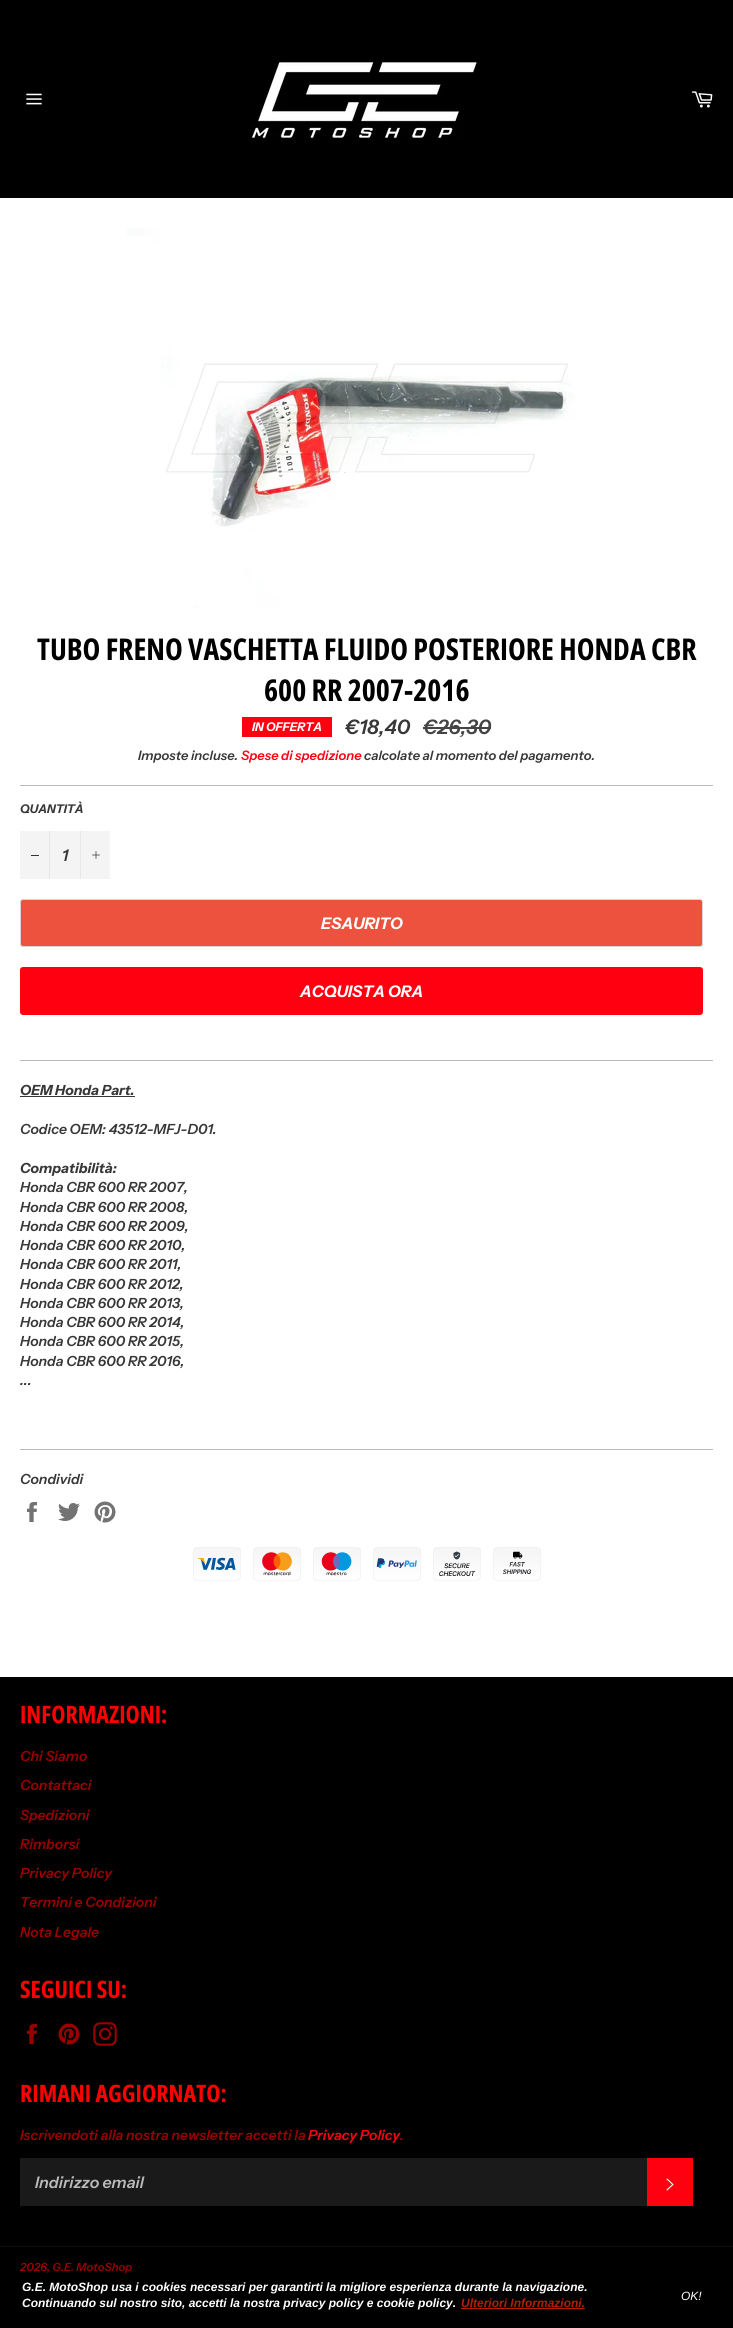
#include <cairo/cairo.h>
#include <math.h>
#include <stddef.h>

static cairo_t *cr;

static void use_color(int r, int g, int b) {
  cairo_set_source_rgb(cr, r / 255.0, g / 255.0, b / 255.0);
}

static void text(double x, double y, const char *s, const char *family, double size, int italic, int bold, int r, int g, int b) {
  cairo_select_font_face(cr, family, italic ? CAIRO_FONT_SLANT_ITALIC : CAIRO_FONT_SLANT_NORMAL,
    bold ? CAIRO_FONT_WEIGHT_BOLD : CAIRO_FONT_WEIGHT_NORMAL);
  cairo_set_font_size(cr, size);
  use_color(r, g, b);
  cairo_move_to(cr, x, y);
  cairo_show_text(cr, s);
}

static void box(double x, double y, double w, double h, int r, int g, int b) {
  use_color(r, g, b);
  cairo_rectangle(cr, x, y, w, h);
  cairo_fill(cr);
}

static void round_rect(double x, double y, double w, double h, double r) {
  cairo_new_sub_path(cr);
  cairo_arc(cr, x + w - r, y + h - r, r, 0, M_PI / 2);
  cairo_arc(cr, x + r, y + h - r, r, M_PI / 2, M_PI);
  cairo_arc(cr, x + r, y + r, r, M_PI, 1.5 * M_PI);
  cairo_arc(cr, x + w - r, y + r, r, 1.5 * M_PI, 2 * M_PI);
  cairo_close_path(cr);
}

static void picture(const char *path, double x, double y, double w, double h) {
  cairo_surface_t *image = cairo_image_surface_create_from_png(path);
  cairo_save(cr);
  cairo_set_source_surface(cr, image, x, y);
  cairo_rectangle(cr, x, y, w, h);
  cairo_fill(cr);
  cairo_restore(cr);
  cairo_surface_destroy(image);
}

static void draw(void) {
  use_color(0, 0, 0);
  cairo_paint(cr);
  picture("img_01.png", 26, 93, 16, 12);
  picture("img_02.png", 252, 62, 228, 76);
  picture("img_03.png", 691, 91, 22, 17);
  box(0, 198, 733, 1479, 255, 255, 255);
  picture("img_04.png", 127, 228, 448, 380);
  box(242, 717, 90, 20, 255, 0, 17);
  box(423, 727, 68, 2, 68, 68, 68);
  box(20, 785, 693, 1, 185, 185, 185);
  box(20, 831, 90, 48, 244, 244, 244);
  box(49, 831, 1, 48, 231, 231, 231);
  box(31, 855, 8, 1, 55, 55, 55);
  box(80, 831, 1, 48, 231, 231, 231);
  picture("img_05.png", 92, 851, 8, 8);
  use_color(236, 82, 62);
  round_rect(20.5, 899.5, 682, 47, 2.5);
  cairo_fill_preserve(cr);
  use_color(213, 213, 213);
  cairo_set_line_width(cr, 1);
  cairo_stroke(cr);
  use_color(255, 0, 17);
  round_rect(20, 967, 683, 48, 3);
  cairo_fill(cr);
  box(20, 1060, 693, 1, 185, 185, 185);
  box(20, 1096, 115, 1, 55, 55, 55);
  box(20, 1449, 693, 1, 185, 185, 185);
  picture("img_06.png", 27, 1502, 10, 20);
  picture("img_07.png", 58, 1503, 22, 18);
  picture("img_08.png", 94, 1501, 22, 22);
  picture("img_09.png", 193, 1547, 348, 34);
  picture("img_10.png", 27, 2024, 10, 20);
  picture("img_11.png", 58, 2023, 22, 22);
  picture("img_12.png", 93, 2022, 24, 24);
  box(20, 2158, 627, 48, 26, 26, 26);
  box(647, 2158, 46, 48, 255, 0, 17);
  picture("img_13.png", 666, 2178, 8, 13);
  box(0, 2246, 733, 1, 13, 13, 13);
  box(461, 2308, 124, 1, 182, 29, 0);
  text(37, 660, "TUBO FRENO VASCHETTA FLUIDO POSTERIORE HONDA CBR", "Open Sans Condensed", 30, 0, 1, 0, 0, 0);
  text(264, 701, "600 RR 2007-2016", "Open Sans Condensed", 30, 0, 1, 0, 0, 0);
  text(252, 731, "IN OFFERTA", "Instrument Sans", 12, 1, 1, 255, 255, 255);
  text(345, 734, "€18,40", "Instrument Sans SemiBold", 20, 1, 0, 55, 55, 55);
  text(423, 734, "€26,30", "Instrument Sans SemiBold", 20, 1, 0, 68, 68, 68);
  text(138, 760, "Imposte incluse.", "Instrument Sans SemiBold", 13, 1, 0, 55, 55, 55);
  text(241, 760, "Spese di spedizione", "Instrument Sans SemiBold", 13, 1, 0, 255, 0, 17);
  text(364, 760, "calcolate al momento del pagamento.", "Instrument Sans SemiBold", 13, 1, 0, 55, 55, 55);
  text(20, 813, "QUANTITÀ", "Instrument Sans", 12, 1, 1, 55, 55, 55);
  text(62, 861, "1", "Instrument Sans SemiBold", 16, 1, 0, 55, 55, 55);
  text(321, 929, "ESAURITO", "Instrument Sans", 16, 1, 1, 255, 255, 255);
  text(300, 997, "ACQUISTA ORA", "Instrument Sans", 16, 1, 1, 255, 255, 255);
  text(20, 1095, "OEM Honda Part.", "Instrument Sans", 14, 1, 1, 55, 55, 55);
  text(20, 1134, "Codice OEM: 43512-MFJ-D01.", "Instrument Sans SemiBold", 14, 1, 0, 55, 55, 55);
  text(20, 1173, "Compatibilità:", "Instrument Sans", 14, 1, 1, 55, 55, 55);
  text(20, 1192, "Honda CBR 600 RR 2007,", "Instrument Sans SemiBold", 14, 1, 0, 55, 55, 55);
  text(20, 1212, "Honda CBR 600 RR 2008,", "Instrument Sans SemiBold", 14, 1, 0, 55, 55, 55);
  text(20, 1231, "Honda CBR 600 RR 2009,", "Instrument Sans SemiBold", 14, 1, 0, 55, 55, 55);
  text(20, 1250, "Honda CBR 600 RR 2010,", "Instrument Sans SemiBold", 14, 1, 0, 55, 55, 55);
  text(20, 1269, "Honda CBR 600 RR 2011,", "Instrument Sans SemiBold", 14, 1, 0, 55, 55, 55);
  text(20, 1289, "Honda CBR 600 RR 2012,", "Instrument Sans SemiBold", 14, 1, 0, 55, 55, 55);
  text(20, 1308, "Honda CBR 600 RR 2013,", "Instrument Sans SemiBold", 14, 1, 0, 55, 55, 55);
  text(20, 1327, "Honda CBR 600 RR 2014,", "Instrument Sans SemiBold", 14, 1, 0, 55, 55, 55);
  text(20, 1346, "Honda CBR 600 RR 2015,", "Instrument Sans SemiBold", 14, 1, 0, 55, 55, 55);
  text(20, 1366, "Honda CBR 600 RR 2016,", "Instrument Sans SemiBold", 14, 1, 0, 55, 55, 55);
  text(20, 1385, "...", "Instrument Sans SemiBold", 14, 1, 0, 55, 55, 55);
  text(20, 1484, "Condividi", "Instrument Sans SemiBold", 14, 1, 0, 55, 55, 55);
  text(20, 1723, "INFORMAZIONI:", "Open Sans Condensed", 24, 0, 1, 255, 0, 0);
  text(20, 1761, "Chi Siamo", "Instrument Sans SemiBold", 14, 1, 0, 153, 0, 0);
  text(20, 1790, "Contattaci", "Instrument Sans SemiBold", 14, 1, 0, 153, 0, 0);
  text(20, 1820, "Spedizioni", "Instrument Sans SemiBold", 14, 1, 0, 153, 0, 0);
  text(20, 1849, "Rimborsi", "Instrument Sans SemiBold", 14, 1, 0, 153, 0, 0);
  text(20, 1878, "Privacy Policy", "Instrument Sans SemiBold", 14, 1, 0, 153, 0, 0);
  text(20, 1907, "Termini e Condizioni", "Instrument Sans SemiBold", 14, 1, 0, 153, 0, 0);
  text(20, 1937, "Nota Legale", "Instrument Sans SemiBold", 14, 1, 0, 153, 0, 0);
  text(20, 1998, "SEGUICI SU:", "Open Sans Condensed", 24, 0, 1, 255, 0, 0);
  text(20, 2102, "RIMANI AGGIORNATO:", "Open Sans Condensed", 24, 0, 1, 255, 0, 0);
  text(20, 2140, "Iscrivendoti alla nostra newsletter accetti la", "Instrument Sans SemiBold", 14, 1, 0, 153, 0, 0);
  text(308, 2140, "Privacy Policy", "Instrument Sans SemiBold", 14, 1, 0, 255, 0, 17);
  text(400, 2140, ".", "Instrument Sans SemiBold", 14, 1, 0, 153, 0, 0);
  text(35, 2188, "Indirizzo email", "Instrument Sans SemiBold", 16, 1, 0, 186, 186, 186);
  text(20, 2271, "2026, G.E. MotoShop", "Instrument Sans SemiBold", 11.25, 1, 0, 153, 0, 0);
  text(22, 2291, "G.E. MotoShop usa i cookies necessari per garantirti la migliore esperienza durante la navigazione.", "Liberation Sans", 12, 1, 1, 255, 255, 255);
  text(22, 2307, "Continuando sul nostro sito, accetti la nostra privacy policy e cookie policy.", "Liberation Sans", 12, 1, 1, 255, 255, 255);
  text(461, 2307, "Ulteriori Informazioni.", "Liberation Sans", 12, 1, 1, 182, 29, 0);
  text(681, 2300, "OK!", "Liberation Sans", 12, 1, 0, 255, 255, 255);
}

int main(void) {
  cairo_surface_t *surface = cairo_image_surface_create(CAIRO_FORMAT_RGB24, 733, 2328);
  cr = cairo_create(surface);
  cairo_font_options_t *options = cairo_font_options_create();
  cairo_font_options_set_hint_metrics(options, CAIRO_HINT_METRICS_OFF);
  cairo_font_options_set_hint_style(options, CAIRO_HINT_STYLE_NONE);
  cairo_set_font_options(cr, options);
  cairo_set_miter_limit(cr, 4);
  draw();
  cairo_surface_write_to_png(surface, "out.png");
  cairo_font_options_destroy(options);
  cairo_destroy(cr);
  cairo_surface_destroy(surface);
  return 0;
}
